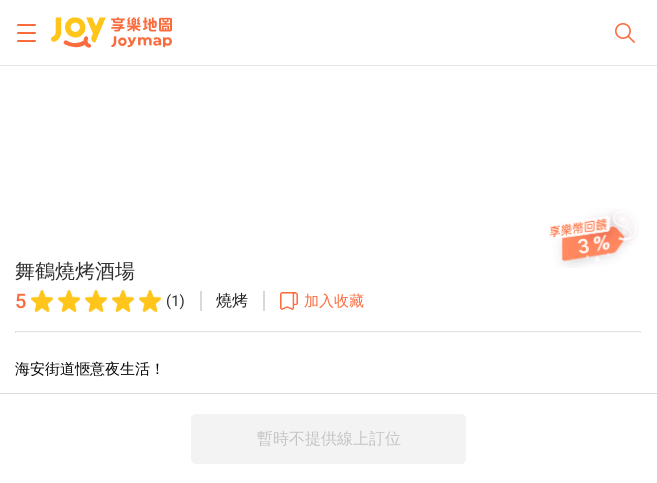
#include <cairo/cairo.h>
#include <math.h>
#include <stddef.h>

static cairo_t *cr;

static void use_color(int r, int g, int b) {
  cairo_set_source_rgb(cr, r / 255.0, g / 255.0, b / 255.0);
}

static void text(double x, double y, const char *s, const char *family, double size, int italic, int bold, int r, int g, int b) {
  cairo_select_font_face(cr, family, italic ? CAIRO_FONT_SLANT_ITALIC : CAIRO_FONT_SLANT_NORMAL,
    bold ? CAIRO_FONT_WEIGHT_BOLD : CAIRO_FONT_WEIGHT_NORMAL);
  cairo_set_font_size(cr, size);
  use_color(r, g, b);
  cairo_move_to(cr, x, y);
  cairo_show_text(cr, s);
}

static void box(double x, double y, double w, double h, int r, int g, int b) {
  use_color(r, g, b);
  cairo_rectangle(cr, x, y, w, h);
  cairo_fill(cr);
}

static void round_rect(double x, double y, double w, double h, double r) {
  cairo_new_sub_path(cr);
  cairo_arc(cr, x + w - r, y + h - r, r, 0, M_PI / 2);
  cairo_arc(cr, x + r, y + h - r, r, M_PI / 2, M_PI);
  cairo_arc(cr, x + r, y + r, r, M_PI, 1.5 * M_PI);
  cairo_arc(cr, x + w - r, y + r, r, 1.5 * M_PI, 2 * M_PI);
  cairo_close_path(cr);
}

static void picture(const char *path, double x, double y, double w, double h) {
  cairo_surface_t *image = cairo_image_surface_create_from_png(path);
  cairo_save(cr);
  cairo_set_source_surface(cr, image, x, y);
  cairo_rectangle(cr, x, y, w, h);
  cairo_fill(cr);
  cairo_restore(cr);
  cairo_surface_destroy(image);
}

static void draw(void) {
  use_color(255, 255, 255);
  cairo_paint(cr);
  box(0, 65, 657, 1, 231, 231, 231);
  use_color(250, 108, 62);
  round_rect(17, 24, 19, 2, 1);
  cairo_fill(cr);
  round_rect(17, 32, 19, 2, 1);
  cairo_fill(cr);
  round_rect(17, 40, 19, 2, 1);
  cairo_fill(cr);
  picture("img_01.png", 51, 17, 121, 31);
  picture("img_02.png", 615, 23, 20, 20);
  picture("img_03.png", 549, 208, 90, 60);
  picture("img_04.png", 31, 290, 22, 22);
  picture("img_05.png", 58, 290, 22, 22);
  picture("img_05.png", 85, 290, 22, 22);
  picture("img_04.png", 112, 290, 22, 22);
  picture("img_05.png", 139, 290, 22, 22);
  box(200, 291, 2, 20, 217, 217, 217);
  box(263, 291, 2, 20, 217, 217, 217);
  picture("img_06.png", 280, 292, 18, 18);
  box(15, 331, 627, 1, 226, 226, 226);
  box(641, 331, 1, 2, 250, 250, 250);
  box(15, 332, 627, 1, 250, 250, 250);
  box(15, 331, 1, 2, 226, 226, 226);
  box(0, 393, 657, 1, 217, 217, 217);
  use_color(243, 243, 243);
  round_rect(191, 414, 275, 50, 5);
  cairo_fill(cr);
  cairo_save(cr);
  cairo_translate(cr, 579, 254);
  cairo_rotate(cr, -8.7 * M_PI / 180);
  text(0, 0, "3", "Roboto", 20, 0, 1, 255, 237, 231);
  cairo_restore(cr);
  text(15, 278, "舞鶴燒烤酒場", "WenQuanYi Zen Hei Medium", 20, 0, 0, 47, 47, 47);
  text(15, 308, "5", "Roboto Medium", 20, 0, 0, 250, 108, 62);
  text(166, 306, "(1)", "Roboto", 15, 0, 0, 47, 47, 47);
  text(216, 306, "燒烤", "WenQuanYi Zen Hei Medium", 16, 0, 0, 33, 33, 33);
  text(304, 306, "加入收藏", "WenQuanYi Zen Hei Medium", 15, 0, 0, 250, 108, 62);
  text(15, 374, "海安街道愜意夜生活！", "WenQuanYi Zen Hei Medium", 15, 0, 0, 5, 5, 5);
  text(257, 444, "暫時不提供線上訂位", "WenQuanYi Zen Hei Medium", 16, 0, 0, 196, 196, 196);
}

int main(void) {
  cairo_surface_t *surface = cairo_image_surface_create(CAIRO_FORMAT_RGB24, 657, 483);
  cr = cairo_create(surface);
  cairo_font_options_t *options = cairo_font_options_create();
  cairo_font_options_set_hint_metrics(options, CAIRO_HINT_METRICS_OFF);
  cairo_font_options_set_hint_style(options, CAIRO_HINT_STYLE_NONE);
  cairo_set_font_options(cr, options);
  cairo_set_miter_limit(cr, 4);
  draw();
  cairo_surface_write_to_png(surface, "out.png");
  cairo_font_options_destroy(options);
  cairo_destroy(cr);
  cairo_surface_destroy(surface);
  return 0;
}
